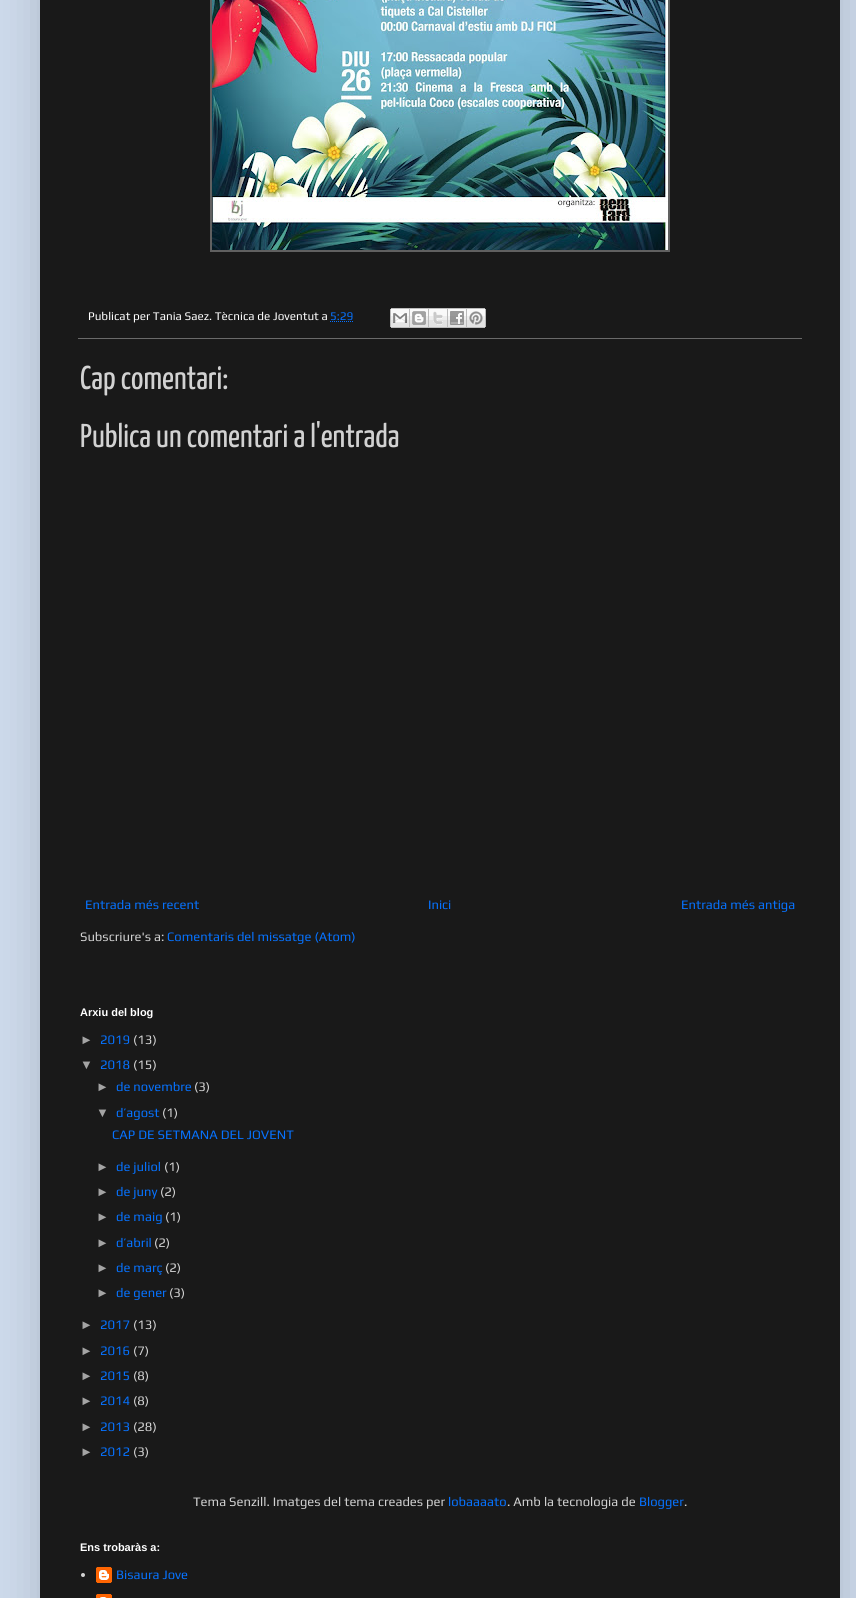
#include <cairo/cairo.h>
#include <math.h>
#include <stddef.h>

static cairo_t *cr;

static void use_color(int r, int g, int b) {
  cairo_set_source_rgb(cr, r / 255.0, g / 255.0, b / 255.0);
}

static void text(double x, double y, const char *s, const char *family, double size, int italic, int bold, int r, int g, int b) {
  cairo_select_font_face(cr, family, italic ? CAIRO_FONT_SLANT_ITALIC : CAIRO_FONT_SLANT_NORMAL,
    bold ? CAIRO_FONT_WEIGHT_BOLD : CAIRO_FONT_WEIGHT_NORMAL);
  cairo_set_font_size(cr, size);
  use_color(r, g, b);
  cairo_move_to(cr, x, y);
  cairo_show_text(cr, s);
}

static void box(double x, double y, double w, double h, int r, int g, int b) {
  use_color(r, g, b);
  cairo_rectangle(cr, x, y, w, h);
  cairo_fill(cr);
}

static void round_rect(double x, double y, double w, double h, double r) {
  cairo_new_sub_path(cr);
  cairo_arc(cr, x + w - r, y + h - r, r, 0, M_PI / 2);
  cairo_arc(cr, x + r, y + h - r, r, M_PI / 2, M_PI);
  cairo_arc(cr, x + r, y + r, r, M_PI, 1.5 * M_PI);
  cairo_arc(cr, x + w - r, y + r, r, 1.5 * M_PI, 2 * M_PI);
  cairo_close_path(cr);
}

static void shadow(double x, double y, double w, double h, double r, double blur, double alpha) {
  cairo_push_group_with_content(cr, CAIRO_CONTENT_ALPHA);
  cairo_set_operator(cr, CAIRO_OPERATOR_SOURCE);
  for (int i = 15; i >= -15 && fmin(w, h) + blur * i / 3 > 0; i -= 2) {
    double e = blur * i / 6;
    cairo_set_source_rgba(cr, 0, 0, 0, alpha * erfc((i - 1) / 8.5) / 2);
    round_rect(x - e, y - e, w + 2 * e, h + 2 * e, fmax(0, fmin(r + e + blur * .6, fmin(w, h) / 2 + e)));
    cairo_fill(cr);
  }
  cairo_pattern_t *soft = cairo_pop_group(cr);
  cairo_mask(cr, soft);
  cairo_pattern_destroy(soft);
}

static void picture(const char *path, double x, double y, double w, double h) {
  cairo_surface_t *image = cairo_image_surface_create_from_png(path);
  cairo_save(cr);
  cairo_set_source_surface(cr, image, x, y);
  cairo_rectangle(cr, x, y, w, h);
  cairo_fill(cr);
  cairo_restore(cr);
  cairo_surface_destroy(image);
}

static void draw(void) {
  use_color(204, 217, 234);
  cairo_paint(cr);
  use_color(0, 0, 0);
  shadow(40, -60, 800, 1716, 0, 20, 0.15);
  box(40, 0, 800, 1598, 25, 25, 25);
  box(210, 0, 460, 252, 96, 96, 96);
  picture("img_01.png", 212, 0, 456, 250);
  box(78, 338, 724, 1, 106, 106, 106);
  cairo_new_path(cr);
  cairo_move_to(cr, 330, 321.5);
  cairo_line_to(cr, 353.5, 321.5);
  use_color(6, 114, 255);
  cairo_set_line_width(cr, 1);
  cairo_set_dash(cr, (double[]){1, 1}, 2, 0);
  cairo_stroke(cr);
  picture("img_02.png", 390, 308, 20, 20);
  picture("img_03.png", 410, 308, 19, 20);
  picture("img_04.png", 429, 308, 19, 20);
  picture("img_05.png", 448, 308, 19, 20);
  picture("img_06.png", 467, 308, 19, 20);
  use_color(210, 210, 210);
  cairo_arc(cr, 83, 1575, 2, 0, 2 * M_PI);
  cairo_fill(cr);
  picture("img_07.png", 96, 1567, 16, 16);
  picture("img_08.png", 96, 1594, 16, 4);
  text(88, 320, "Publicat per Tania Saez. Tècnica de Joventut a", "Play", 11.7, 0, 0, 255, 255, 255);
  text(330, 320, "5:29", "Play", 11.7, 0, 0, 6, 114, 255);
  text(80, 389, "Cap comentari:", "Yanone Kaffeesatz ExtraLight", 33, 0, 0, 210, 210, 210);
  text(80, 447, "Publica un comentari a l'entrada", "Yanone Kaffeesatz ExtraLight", 33, 0, 0, 210, 210, 210);
  text(85, 909, "Entrada més recent", "Play", 13, 0, 0, 6, 114, 255);
  text(428, 909, "Inici", "Play", 13, 0, 0, 6, 114, 255);
  text(681, 909, "Entrada més antiga", "Play", 13, 0, 0, 6, 114, 255);
  text(80, 941, "Subscriure's a:", "Play", 13, 0, 0, 210, 210, 210);
  text(167, 941, "Comentaris del missatge (Atom)", "Play", 13, 0, 0, 6, 114, 255);
  text(80, 1016, "Arxiu del blog", "Liberation Sans", 11, 0, 1, 255, 255, 255);
  text(80, 1044, "►", "Liberation Sans", 13, 0, 0, 164, 164, 164);
  text(100, 1044, "2019", "Play", 13, 0, 0, 6, 114, 255);
  text(133, 1044, "(13)", "Play", 13, 0, 0, 210, 210, 210);
  text(80, 1069, "▼", "Liberation Sans", 13, 0, 0, 164, 164, 164);
  text(100, 1069, "2018", "Play", 13, 0, 0, 6, 114, 255);
  text(133, 1069, "(15)", "Play", 13, 0, 0, 210, 210, 210);
  text(96, 1091, "►", "Liberation Sans", 13, 0, 0, 164, 164, 164);
  text(116, 1091, "de novembre", "Play", 13, 0, 0, 6, 114, 255);
  text(194, 1091, "(3)", "Play", 13, 0, 0, 210, 210, 210);
  text(96, 1117, "▼", "Liberation Sans", 13, 0, 0, 164, 164, 164);
  text(116, 1117, "d’agost", "Play", 13, 0, 0, 6, 114, 255);
  text(162, 1117, "(1)", "Play", 13, 0, 0, 210, 210, 210);
  text(112, 1139, "CAP DE SETMANA DEL JOVENT", "Play", 13, 0, 0, 6, 114, 255);
  text(96, 1171, "►", "Liberation Sans", 13, 0, 0, 164, 164, 164);
  text(116, 1171, "de juliol", "Play", 13, 0, 0, 6, 114, 255);
  text(164, 1171, "(1)", "Play", 13, 0, 0, 210, 210, 210);
  text(96, 1196, "►", "Liberation Sans", 13, 0, 0, 164, 164, 164);
  text(116, 1196, "de juny", "Play", 13, 0, 0, 6, 114, 255);
  text(160, 1196, "(2)", "Play", 13, 0, 0, 210, 210, 210);
  text(96, 1221, "►", "Liberation Sans", 13, 0, 0, 164, 164, 164);
  text(116, 1221, "de maig", "Play", 13, 0, 0, 6, 114, 255);
  text(165, 1221, "(1)", "Play", 13, 0, 0, 210, 210, 210);
  text(96, 1247, "►", "Liberation Sans", 13, 0, 0, 164, 164, 164);
  text(116, 1247, "d’abril", "Play", 13, 0, 0, 6, 114, 255);
  text(154, 1247, "(2)", "Play", 13, 0, 0, 210, 210, 210);
  text(96, 1272, "►", "Liberation Sans", 13, 0, 0, 164, 164, 164);
  text(116, 1272, "de març", "Play", 13, 0, 0, 6, 114, 255);
  text(165, 1272, "(2)", "Play", 13, 0, 0, 210, 210, 210);
  text(96, 1297, "►", "Liberation Sans", 13, 0, 0, 164, 164, 164);
  text(116, 1297, "de gener", "Play", 13, 0, 0, 6, 114, 255);
  text(169, 1297, "(3)", "Play", 13, 0, 0, 210, 210, 210);
  text(80, 1329, "►", "Liberation Sans", 13, 0, 0, 164, 164, 164);
  text(100, 1329, "2017", "Play", 13, 0, 0, 6, 114, 255);
  text(133, 1329, "(13)", "Play", 13, 0, 0, 210, 210, 210);
  text(80, 1355, "►", "Liberation Sans", 13, 0, 0, 164, 164, 164);
  text(100, 1355, "2016", "Play", 13, 0, 0, 6, 114, 255);
  text(133, 1355, "(7)", "Play", 13, 0, 0, 210, 210, 210);
  text(80, 1380, "►", "Liberation Sans", 13, 0, 0, 164, 164, 164);
  text(100, 1380, "2015", "Play", 13, 0, 0, 6, 114, 255);
  text(133, 1380, "(8)", "Play", 13, 0, 0, 210, 210, 210);
  text(80, 1405, "►", "Liberation Sans", 13, 0, 0, 164, 164, 164);
  text(100, 1405, "2014", "Play", 13, 0, 0, 6, 114, 255);
  text(133, 1405, "(8)", "Play", 13, 0, 0, 210, 210, 210);
  text(80, 1431, "►", "Liberation Sans", 13, 0, 0, 164, 164, 164);
  text(100, 1431, "2013", "Play", 13, 0, 0, 6, 114, 255);
  text(133, 1431, "(28)", "Play", 13, 0, 0, 210, 210, 210);
  text(80, 1456, "►", "Liberation Sans", 13, 0, 0, 164, 164, 164);
  text(100, 1456, "2012", "Play", 13, 0, 0, 6, 114, 255);
  text(133, 1456, "(3)", "Play", 13, 0, 0, 210, 210, 210);
  text(193, 1506, "Tema Senzill. Imatges del tema creades per", "Play", 13, 0, 0, 210, 210, 210);
  text(448, 1506, "lobaaaato", "Play", 13, 0, 0, 6, 114, 255);
  text(507, 1506, ". Amb la tecnologia de", "Play", 13, 0, 0, 210, 210, 210);
  text(639, 1506, "Blogger", "Play", 13, 0, 0, 6, 114, 255);
  text(684, 1506, ".", "Play", 13, 0, 0, 210, 210, 210);
  text(80, 1551, "Ens trobaràs a:", "Liberation Sans", 11, 0, 1, 255, 255, 255);
  text(116, 1579, "Bisaura Jove", "Play", 13, 0, 0, 6, 114, 255);
}

int main(void) {
  cairo_surface_t *surface = cairo_image_surface_create(CAIRO_FORMAT_RGB24, 856, 1598);
  cr = cairo_create(surface);
  cairo_font_options_t *options = cairo_font_options_create();
  cairo_font_options_set_hint_metrics(options, CAIRO_HINT_METRICS_OFF);
  cairo_font_options_set_hint_style(options, CAIRO_HINT_STYLE_NONE);
  cairo_set_font_options(cr, options);
  cairo_set_miter_limit(cr, 4);
  draw();
  cairo_surface_write_to_png(surface, "out.png");
  cairo_font_options_destroy(options);
  cairo_destroy(cr);
  cairo_surface_destroy(surface);
  return 0;
}
